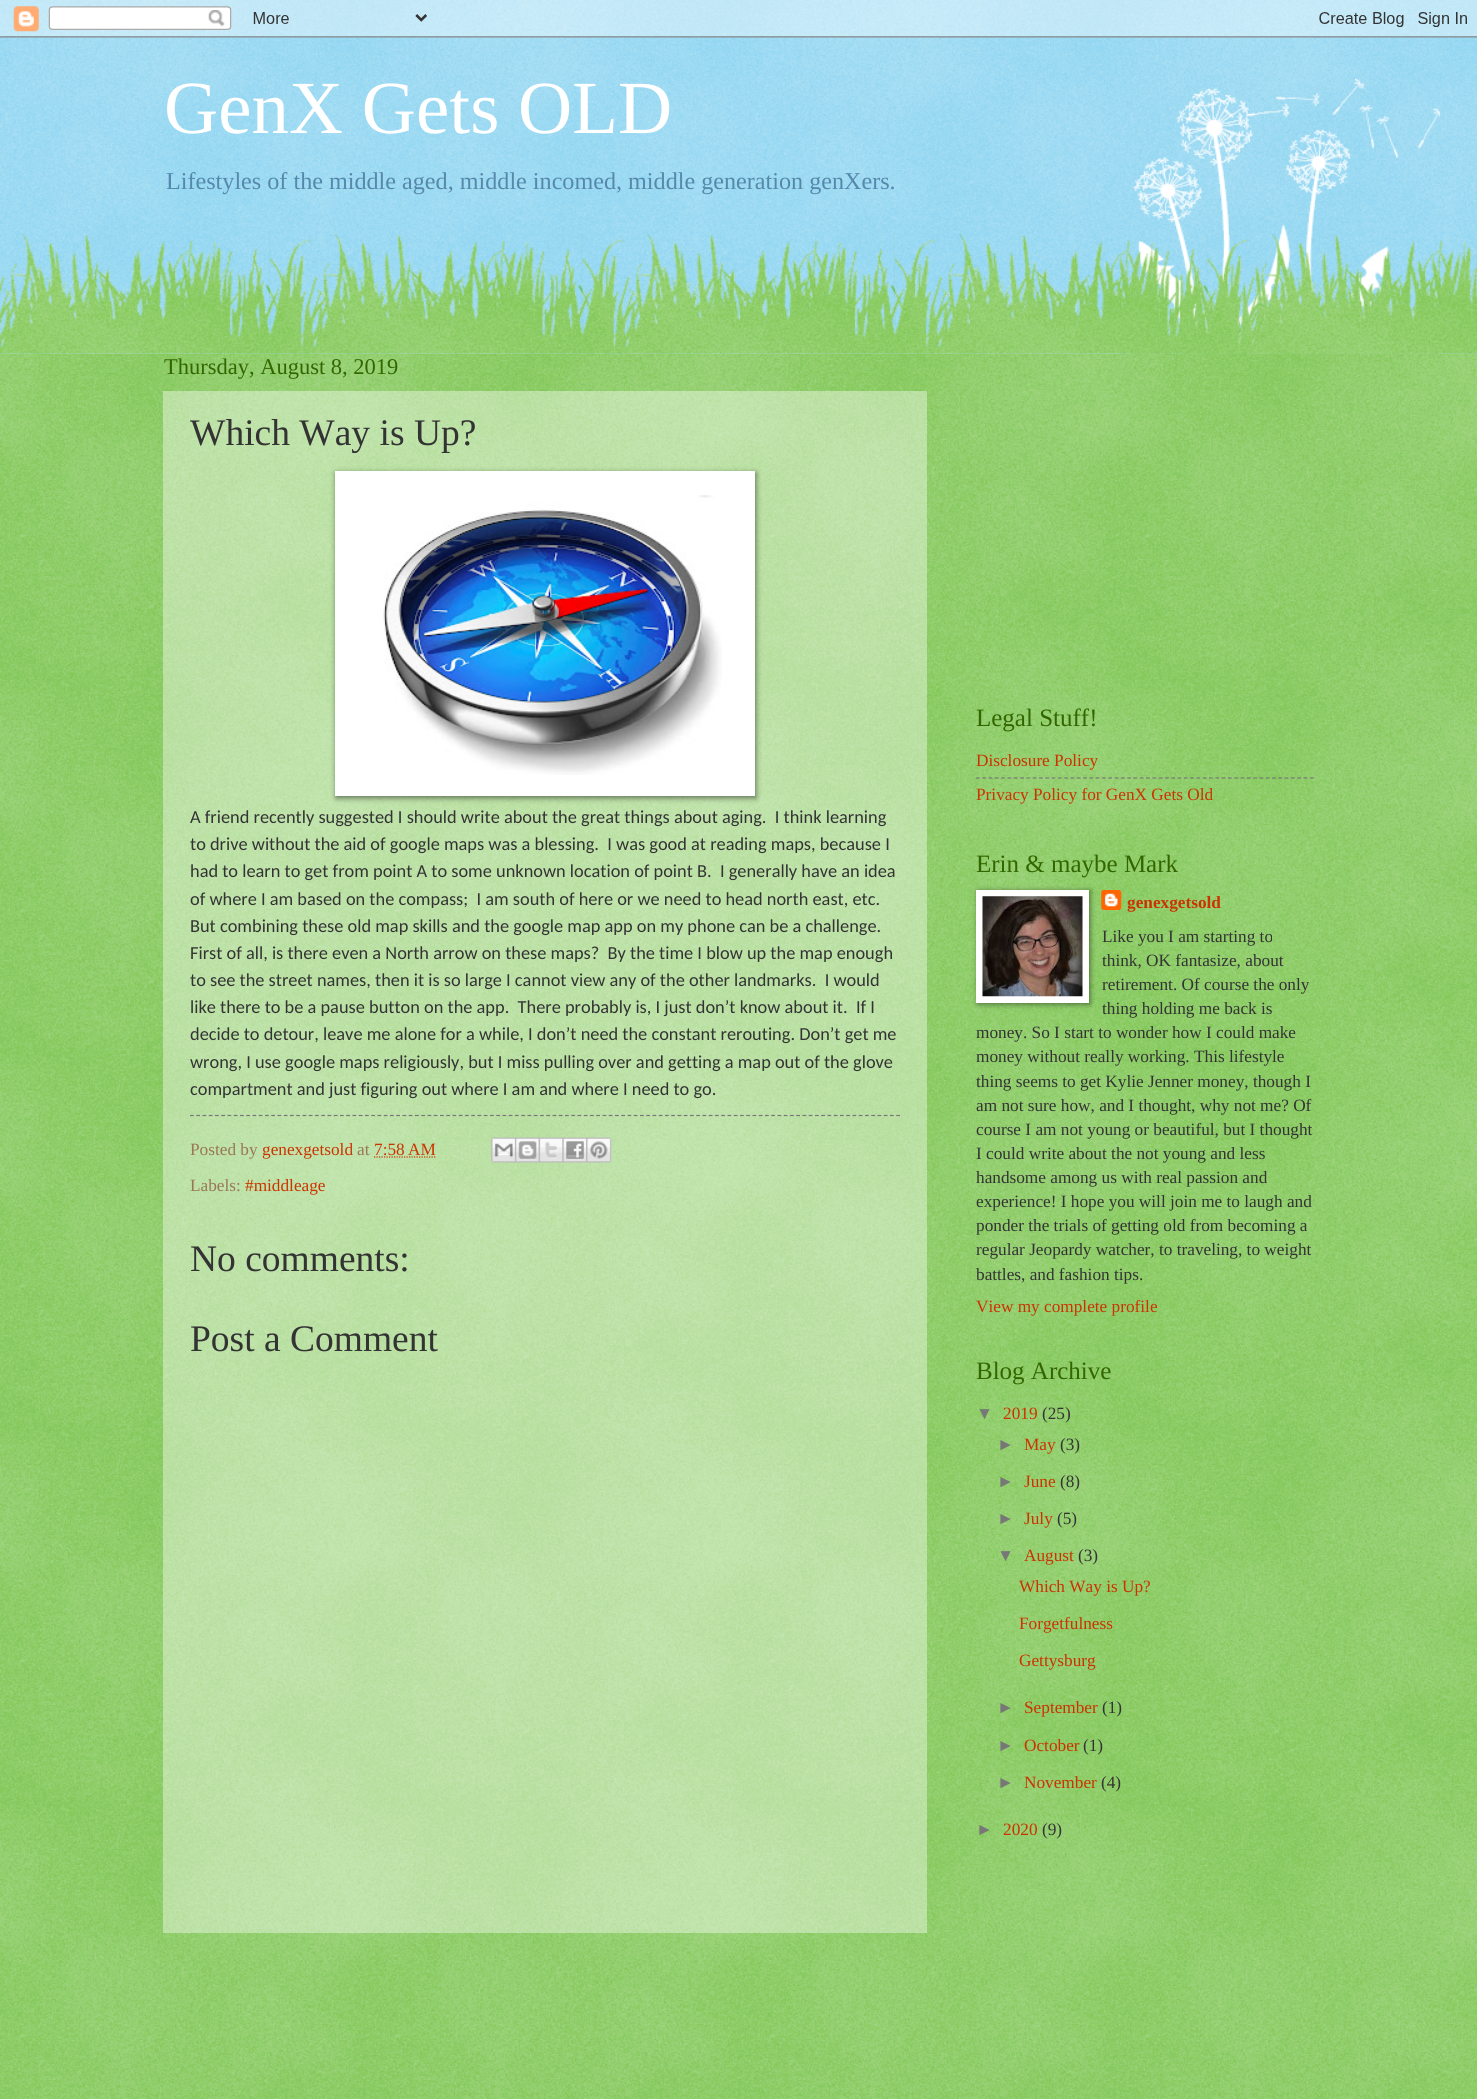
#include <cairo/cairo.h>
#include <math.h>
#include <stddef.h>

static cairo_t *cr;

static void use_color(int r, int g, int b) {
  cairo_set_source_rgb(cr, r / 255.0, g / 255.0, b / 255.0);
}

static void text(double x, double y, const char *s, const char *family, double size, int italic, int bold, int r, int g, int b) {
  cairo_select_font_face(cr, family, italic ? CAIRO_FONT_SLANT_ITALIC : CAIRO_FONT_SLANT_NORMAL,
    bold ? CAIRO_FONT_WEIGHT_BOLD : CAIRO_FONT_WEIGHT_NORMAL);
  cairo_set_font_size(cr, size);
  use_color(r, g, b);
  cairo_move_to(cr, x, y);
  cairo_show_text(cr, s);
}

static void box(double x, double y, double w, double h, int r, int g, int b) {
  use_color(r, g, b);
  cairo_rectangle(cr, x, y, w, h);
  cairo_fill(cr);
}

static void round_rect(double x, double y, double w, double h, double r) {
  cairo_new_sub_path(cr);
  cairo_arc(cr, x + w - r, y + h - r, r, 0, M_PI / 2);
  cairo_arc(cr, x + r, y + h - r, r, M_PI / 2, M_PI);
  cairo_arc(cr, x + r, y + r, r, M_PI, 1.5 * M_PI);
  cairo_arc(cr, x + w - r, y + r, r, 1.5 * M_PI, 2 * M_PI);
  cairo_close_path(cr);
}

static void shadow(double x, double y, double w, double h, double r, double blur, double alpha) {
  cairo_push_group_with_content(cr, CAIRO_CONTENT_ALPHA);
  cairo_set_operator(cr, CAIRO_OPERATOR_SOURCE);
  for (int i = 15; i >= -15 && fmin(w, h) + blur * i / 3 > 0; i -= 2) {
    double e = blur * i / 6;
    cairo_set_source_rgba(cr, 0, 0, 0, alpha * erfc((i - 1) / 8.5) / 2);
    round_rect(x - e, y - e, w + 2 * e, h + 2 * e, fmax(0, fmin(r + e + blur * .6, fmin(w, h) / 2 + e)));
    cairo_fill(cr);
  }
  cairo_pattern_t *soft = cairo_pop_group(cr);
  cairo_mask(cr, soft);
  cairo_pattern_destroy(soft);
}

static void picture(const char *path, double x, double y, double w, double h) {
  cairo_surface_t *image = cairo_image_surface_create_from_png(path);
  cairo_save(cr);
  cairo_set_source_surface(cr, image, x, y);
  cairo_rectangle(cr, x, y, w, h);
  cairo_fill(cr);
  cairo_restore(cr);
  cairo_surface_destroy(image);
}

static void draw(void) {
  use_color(119, 204, 238);
  cairo_paint(cr);
  picture("img_01.png", 0, 0, 1477, 354);
  picture("img_02.png", 0, 0, 1477, 38);
  box(0, 354, 1477, 1745, 102, 187, 51);
  picture("img_03.png", 0, 353, 1477, 1746);
  picture("img_04.png", 1127, 78, 313, 276);
  picture("img_05.png", 0, 233, 1477, 121);
  cairo_set_source_rgba(cr, 1, 1, 1, 0.4);
  cairo_rectangle(cr, 163, 391, 764, 1542);
  cairo_fill(cr);
  use_color(0, 0, 0);
  shadow(336, 473, 420, 325, 0, 3, 0.5);
  box(335, 471, 420, 325, 255, 255, 255);
  picture("img_06.png", 383, 495, 339, 280);
  cairo_new_path(cr);
  cairo_move_to(cr, 190, 1115.5);
  cairo_line_to(cr, 900, 1115.5);
  use_color(119, 119, 119);
  cairo_set_line_width(cr, 1.2);
  cairo_set_dash(cr, (double[]){3.75, 2.5}, 2, 0);
  cairo_stroke(cr);
  cairo_new_path(cr);
  cairo_move_to(cr, 374, 1157);
  cairo_line_to(cr, 436, 1157);
  use_color(204, 51, 0);
  cairo_set_dash(cr, (double[]){1.25, 1.25}, 2, 0);
  cairo_stroke(cr);
  picture("img_07.png", 491, 1137, 26, 26);
  picture("img_08.png", 515, 1137, 25, 26);
  picture("img_09.png", 538, 1137, 26, 26);
  picture("img_10.png", 562, 1137, 26, 26);
  picture("img_11.png", 586, 1137, 26, 26);
  cairo_new_path(cr);
  cairo_move_to(cr, 976, 778);
  cairo_line_to(cr, 1314, 778);
  use_color(119, 119, 119);
  cairo_set_dash(cr, (double[]){3.75, 2.55}, 2, 0);
  cairo_stroke(cr);
  use_color(0, 0, 0);
  shadow(978, 891, 112, 113, 0, 3, 0.5);
  box(976, 890, 113, 113, 255, 255, 255);
  picture("img_12.png", 982, 896, 101, 101);
  picture("img_13.png", 1101, 890, 21, 20);
  text(164, 133, "GenX Gets OLD", "Liberation Serif", 75, 0, 0, 255, 255, 255);
  text(166, 189, "Lifestyles of the middle aged, middle incomed, middle generation genXers.", "Liberation Serif", 24.15, 0, 0, 85, 136, 170);
  text(164, 374, "Thursday, August 8, 2019", "Liberation Serif", 22.5, 0, 0, 51, 102, 0);
  text(190, 445, "Which Way is Up?", "Liberation Serif", 37.5, 0, 0, 51, 51, 51);
  text(190, 823, "A friend recently suggested I should write about the great things about aging.  I think learning", "Carlito", 18.35, 0, 0, 51, 51, 51);
  text(190, 850, "to drive without the aid of google maps was a blessing.  I was good at reading maps, because I", "Carlito", 18.35, 0, 0, 51, 51, 51);
  text(190, 877, "had to learn to get from point A to some unknown location of point B.  I generally have an idea", "Carlito", 18.35, 0, 0, 51, 51, 51);
  text(190, 905, "of where I am based on the compass;  I am south of here or we need to head north east, etc.", "Carlito", 18.35, 0, 0, 51, 51, 51);
  text(190, 932, "But combining these old map skills and the google map app on my phone can be a challenge.", "Carlito", 18.35, 0, 0, 51, 51, 51);
  text(190, 959, "First of all, is there even a North arrow on these maps?  By the time I blow up the map enough", "Carlito", 18.35, 0, 0, 51, 51, 51);
  text(190, 986, "to see the street names, then it is so large I cannot view any of the other landmarks.  I would", "Carlito", 18.35, 0, 0, 51, 51, 51);
  text(190, 1013, "like there to be a pause button on the app.  There probably is, I just don’t know about it.  If I", "Carlito", 18.35, 0, 0, 51, 51, 51);
  text(190, 1040, "decide to detour, leave me alone for a while, I don’t need the constant rerouting. Don’t get me", "Carlito", 18.35, 0, 0, 51, 51, 51);
  text(190, 1068, "wrong, I use google maps religiously, but I miss pulling over and getting a map out of the glove", "Carlito", 18.35, 0, 0, 51, 51, 51);
  text(190, 1095, "compartment and just figuring out where I am and where I need to go.", "Carlito", 18.35, 0, 0, 51, 51, 51);
  text(190, 1155, "Posted by", "Liberation Serif", 17.25, 0, 0, 153, 119, 85);
  text(262, 1155, "genexgetsold", "Liberation Serif", 17.25, 0, 0, 204, 51, 0);
  text(357, 1155, "at", "Liberation Serif", 17.25, 0, 0, 153, 119, 85);
  text(374, 1155, "7:58 AM", "Liberation Serif", 17.25, 0, 0, 204, 51, 0);
  text(190, 1191, "Labels:", "Liberation Serif", 17.25, 0, 0, 153, 119, 85);
  text(245, 1191, "#middleage", "Liberation Serif", 17.25, 0, 0, 204, 51, 0);
  text(190, 1271, "No comments:", "Liberation Serif", 37.5, 0, 0, 51, 51, 51);
  text(190, 1351, "Post a Comment", "Liberation Serif", 37.5, 0, 0, 51, 51, 51);
  text(976, 726, "Legal Stuff!", "Liberation Serif", 25, 0, 0, 51, 102, 0);
  text(976, 766, "Disclosure Policy", "Liberation Serif", 17.25, 0, 0, 204, 51, 0);
  text(976, 800, "Privacy Policy for GenX Gets Old", "Liberation Serif", 17.25, 0, 0, 204, 51, 0);
  text(976, 872, "Erin & maybe Mark", "Liberation Serif", 25, 0, 0, 51, 102, 0);
  text(1127, 908, "genexgetsold", "Liberation Serif", 17.25, 0, 1, 204, 51, 0);
  text(1102, 942, "Like you I am starting to", "Liberation Serif", 17.25, 0, 0, 51, 51, 51);
  text(1102, 966, "think, OK fantasize, about", "Liberation Serif", 17.25, 0, 0, 51, 51, 51);
  text(1102, 990, "retirement. Of course the only", "Liberation Serif", 17.25, 0, 0, 51, 51, 51);
  text(1102, 1014, "thing holding me back is", "Liberation Serif", 17.25, 0, 0, 51, 51, 51);
  text(976, 1038, "money. So I start to wonder how I could make", "Liberation Serif", 17.25, 0, 0, 51, 51, 51);
  text(976, 1062, "money without really working. This lifestyle", "Liberation Serif", 17.25, 0, 0, 51, 51, 51);
  text(976, 1087, "thing seems to get Kylie Jenner money, though I", "Liberation Serif", 17.25, 0, 0, 51, 51, 51);
  text(976, 1111, "am not sure how, and I thought, why not me? Of", "Liberation Serif", 17.25, 0, 0, 51, 51, 51);
  text(976, 1135, "course I am not young or beautiful, but I thought", "Liberation Serif", 17.25, 0, 0, 51, 51, 51);
  text(976, 1159, "I could write about the not young and less", "Liberation Serif", 17.25, 0, 0, 51, 51, 51);
  text(976, 1183, "handsome among us with real passion and", "Liberation Serif", 17.25, 0, 0, 51, 51, 51);
  text(976, 1207, "experience! I hope you will join me to laugh and", "Liberation Serif", 17.25, 0, 0, 51, 51, 51);
  text(976, 1231, "ponder the trials of getting old from becoming a", "Liberation Serif", 17.25, 0, 0, 51, 51, 51);
  text(976, 1255, "regular Jeopardy watcher, to traveling, to weight", "Liberation Serif", 17.25, 0, 0, 51, 51, 51);
  text(976, 1280, "battles, and fashion tips.", "Liberation Serif", 17.25, 0, 0, 51, 51, 51);
  text(976, 1312, "View my complete profile", "Liberation Serif", 17.25, 0, 0, 204, 51, 0);
  text(976, 1379, "Blog Archive", "Liberation Serif", 25, 0, 0, 51, 102, 0);
  text(976, 1419, "▼", "Liberation Sans", 17.25, 0, 0, 119, 119, 119);
  text(1003, 1419, "2019", "Liberation Serif", 17.25, 0, 0, 204, 51, 0);
  text(1042, 1419, "(25)", "Liberation Serif", 17.25, 0, 0, 51, 51, 51);
  text(997, 1450, "►", "Liberation Sans", 17.25, 0, 0, 119, 119, 119);
  text(1024, 1450, "May", "Liberation Serif", 17.25, 0, 0, 204, 51, 0);
  text(1060, 1450, "(3)", "Liberation Serif", 17.25, 0, 0, 51, 51, 51);
  text(997, 1487, "►", "Liberation Sans", 17.25, 0, 0, 119, 119, 119);
  text(1024, 1487, "June", "Liberation Serif", 17.25, 0, 0, 204, 51, 0);
  text(1060, 1487, "(8)", "Liberation Serif", 17.25, 0, 0, 51, 51, 51);
  text(997, 1524, "►", "Liberation Sans", 17.25, 0, 0, 119, 119, 119);
  text(1024, 1524, "July", "Liberation Serif", 17.25, 0, 0, 204, 51, 0);
  text(1057, 1524, "(5)", "Liberation Serif", 17.25, 0, 0, 51, 51, 51);
  text(997, 1561, "▼", "Liberation Sans", 17.25, 0, 0, 119, 119, 119);
  text(1024, 1561, "August", "Liberation Serif", 17.25, 0, 0, 204, 51, 0);
  text(1078, 1561, "(3)", "Liberation Serif", 17.25, 0, 0, 51, 51, 51);
  text(1019, 1592, "Which Way is Up?", "Liberation Serif", 17.25, 0, 0, 204, 51, 0);
  text(1019, 1629, "Forgetfulness", "Liberation Serif", 17.25, 0, 0, 204, 51, 0);
  text(1019, 1666, "Gettysburg", "Liberation Serif", 17.25, 0, 0, 204, 51, 0);
  text(997, 1713, "►", "Liberation Sans", 17.25, 0, 0, 119, 119, 119);
  text(1024, 1713, "September", "Liberation Serif", 17.25, 0, 0, 204, 51, 0);
  text(1102, 1713, "(1)", "Liberation Serif", 17.25, 0, 0, 51, 51, 51);
  text(997, 1751, "►", "Liberation Sans", 17.25, 0, 0, 119, 119, 119);
  text(1024, 1751, "October", "Liberation Serif", 17.25, 0, 0, 204, 51, 0);
  text(1083, 1751, "(1)", "Liberation Serif", 17.25, 0, 0, 51, 51, 51);
  text(997, 1788, "►", "Liberation Sans", 17.25, 0, 0, 119, 119, 119);
  text(1024, 1788, "November", "Liberation Serif", 17.25, 0, 0, 204, 51, 0);
  text(1101, 1788, "(4)", "Liberation Serif", 17.25, 0, 0, 51, 51, 51);
  text(976, 1835, "►", "Liberation Sans", 17.25, 0, 0, 119, 119, 119);
  text(1003, 1835, "2020", "Liberation Serif", 17.25, 0, 0, 204, 51, 0);
  text(1042, 1835, "(9)", "Liberation Serif", 17.25, 0, 0, 51, 51, 51);
}

int main(void) {
  cairo_surface_t *surface = cairo_image_surface_create(CAIRO_FORMAT_RGB24, 1477, 2099);
  cr = cairo_create(surface);
  cairo_font_options_t *options = cairo_font_options_create();
  cairo_font_options_set_hint_metrics(options, CAIRO_HINT_METRICS_OFF);
  cairo_font_options_set_hint_style(options, CAIRO_HINT_STYLE_NONE);
  cairo_set_font_options(cr, options);
  cairo_set_miter_limit(cr, 4);
  draw();
  cairo_surface_write_to_png(surface, "out.png");
  cairo_font_options_destroy(options);
  cairo_destroy(cr);
  cairo_surface_destroy(surface);
  return 0;
}
